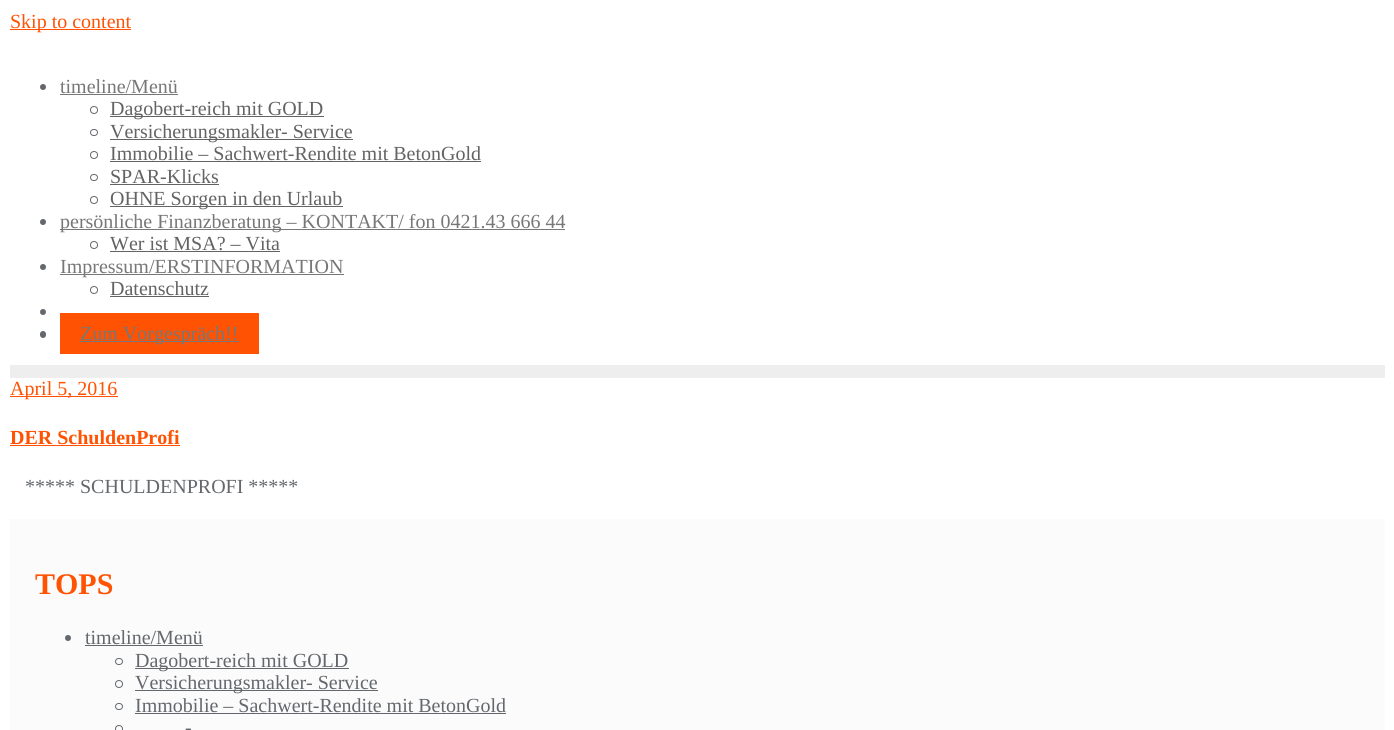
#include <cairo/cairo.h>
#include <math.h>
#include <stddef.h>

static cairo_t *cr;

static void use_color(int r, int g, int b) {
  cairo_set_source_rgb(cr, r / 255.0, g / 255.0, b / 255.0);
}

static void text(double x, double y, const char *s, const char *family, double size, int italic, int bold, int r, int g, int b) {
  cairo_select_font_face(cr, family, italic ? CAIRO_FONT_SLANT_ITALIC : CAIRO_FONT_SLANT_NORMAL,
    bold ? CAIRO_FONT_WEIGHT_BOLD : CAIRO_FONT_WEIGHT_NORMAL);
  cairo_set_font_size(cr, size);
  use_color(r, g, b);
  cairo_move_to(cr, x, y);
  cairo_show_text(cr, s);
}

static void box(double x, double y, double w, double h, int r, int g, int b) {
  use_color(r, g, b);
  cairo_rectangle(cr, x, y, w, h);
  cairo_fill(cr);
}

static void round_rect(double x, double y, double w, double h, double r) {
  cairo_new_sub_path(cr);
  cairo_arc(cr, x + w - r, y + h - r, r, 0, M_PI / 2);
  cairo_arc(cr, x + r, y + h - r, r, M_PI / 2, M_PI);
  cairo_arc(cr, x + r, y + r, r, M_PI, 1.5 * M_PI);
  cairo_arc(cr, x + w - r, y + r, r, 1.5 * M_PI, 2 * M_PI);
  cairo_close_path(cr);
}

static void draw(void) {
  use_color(255, 255, 255);
  cairo_paint(cr);
  box(10, 365, 1375, 13, 238, 238, 238);
  box(10, 29, 121, 1, 255, 82, 2);
  use_color(100, 104, 109);
  cairo_arc(cr, 43, 87, 3, 0, 2 * M_PI);
  cairo_fill(cr);
  box(60, 94, 118, 1, 119, 119, 119);
  cairo_arc(cr, 94, 110, 3.5, 0, 2 * M_PI);
  use_color(100, 104, 109);
  cairo_set_line_width(cr, 1);
  cairo_stroke(cr);
  box(110, 116, 214, 1, 99, 99, 99);
  round_rect(90.5, 129.5, 7, 6, 3);
  use_color(100, 104, 109);
  cairo_stroke(cr);
  box(110, 139, 243, 1, 99, 99, 99);
  cairo_arc(cr, 94, 155, 3.5, 0, 2 * M_PI);
  use_color(100, 104, 109);
  cairo_stroke(cr);
  box(110, 161, 371, 1, 99, 99, 99);
  round_rect(90.5, 174.5, 7, 6, 3);
  use_color(100, 104, 109);
  cairo_stroke(cr);
  box(110, 184, 109, 1, 99, 99, 99);
  cairo_arc(cr, 94, 200, 3.5, 0, 2 * M_PI);
  use_color(100, 104, 109);
  cairo_stroke(cr);
  box(110, 206, 233, 1, 99, 99, 99);
  use_color(100, 104, 109);
  cairo_arc(cr, 43, 222, 3, 0, 2 * M_PI);
  cairo_fill(cr);
  box(60, 229, 505, 1, 119, 119, 119);
  cairo_arc(cr, 94, 245, 3.5, 0, 2 * M_PI);
  use_color(100, 104, 109);
  cairo_stroke(cr);
  box(110, 251, 170, 1, 99, 99, 99);
  use_color(100, 104, 109);
  cairo_arc(cr, 43, 267, 3, 0, 2 * M_PI);
  cairo_fill(cr);
  box(60, 274, 284, 1, 119, 119, 119);
  cairo_arc(cr, 94, 290, 3.5, 0, 2 * M_PI);
  use_color(100, 104, 109);
  cairo_stroke(cr);
  box(110, 296, 99, 1, 99, 99, 99);
  use_color(100, 104, 109);
  cairo_arc(cr, 43, 312, 3, 0, 2 * M_PI);
  cairo_fill(cr);
  round_rect(40, 331, 6, 7, 3);
  cairo_fill(cr);
  box(60, 313, 199, 41, 255, 82, 2);
  box(80, 341, 159, 1, 119, 119, 119);
  box(10, 396, 108, 1, 255, 82, 2);
  box(10, 445, 170, 1, 255, 82, 2);
  box(10, 519, 1375, 211, 251, 251, 251);
  use_color(100, 104, 109);
  cairo_arc(cr, 68, 638, 3, 0, 2 * M_PI);
  cairo_fill(cr);
  box(85, 645, 118, 1, 100, 104, 109);
  round_rect(115.5, 658.5, 7, 6, 3);
  cairo_stroke(cr);
  box(135, 668, 214, 1, 100, 104, 109);
  cairo_arc(cr, 119, 684, 3.5, 0, 2 * M_PI);
  cairo_stroke(cr);
  box(135, 690, 243, 1, 100, 104, 109);
  round_rect(115.5, 703.5, 7, 6, 3);
  cairo_stroke(cr);
  box(135, 713, 371, 1, 100, 104, 109);
  cairo_arc(cr, 119, 729, 3.5, 0, 2 * M_PI);
  cairo_stroke(cr);
  text(10, 28, "Skip to content", "Liberation Serif", 20, 0, 0, 255, 82, 2);
  text(60, 93, "timeline/Menü", "Liberation Serif", 20, 0, 0, 119, 119, 119);
  text(110, 115, "Dagobert-reich mit GOLD", "Liberation Serif", 20, 0, 0, 99, 99, 99);
  text(110, 138, "Versicherungsmakler- Service", "Liberation Serif", 20, 0, 0, 99, 99, 99);
  text(110, 160, "Immobilie – Sachwert-Rendite mit BetonGold", "Liberation Serif", 20, 0, 0, 99, 99, 99);
  text(110, 183, "SPAR-Klicks", "Liberation Serif", 20, 0, 0, 99, 99, 99);
  text(110, 205, "OHNE Sorgen in den Urlaub", "Liberation Serif", 20, 0, 0, 99, 99, 99);
  text(60, 228, "persönliche Finanzberatung – KONTAKT/ fon 0421.43 666 44", "Liberation Serif", 20, 0, 0, 119, 119, 119);
  text(110, 250, "Wer ist MSA? – Vita", "Liberation Serif", 20, 0, 0, 99, 99, 99);
  text(60, 273, "Impressum/ERSTINFORMATION", "Liberation Serif", 20, 0, 0, 119, 119, 119);
  text(110, 295, "Datenschutz", "Liberation Serif", 20, 0, 0, 99, 99, 99);
  text(80, 340, "Zum Vorgespräch!!", "Liberation Serif", 20, 0, 0, 119, 119, 119);
  text(10, 395, "April 5, 2016", "Liberation Serif", 20, 0, 0, 255, 82, 2);
  text(10, 444, "DER SchuldenProfi", "Liberation Serif", 20, 0, 1, 255, 82, 2);
  text(25, 493, "***** SCHULDENPROFI *****", "Liberation Serif", 20, 0, 0, 100, 104, 109);
  text(35, 594, "TOPS", "Liberation Serif", 30, 0, 1, 255, 82, 2);
  text(85, 644, "timeline/Menü", "Liberation Serif", 20, 0, 0, 100, 104, 109);
  text(135, 667, "Dagobert-reich mit GOLD", "Liberation Serif", 20, 0, 0, 100, 104, 109);
  text(135, 689, "Versicherungsmakler- Service", "Liberation Serif", 20, 0, 0, 100, 104, 109);
  text(135, 712, "Immobilie – Sachwert-Rendite mit BetonGold", "Liberation Serif", 20, 0, 0, 100, 104, 109);
  text(185, 734, "-", "Liberation Serif", 20, 0, 0, 100, 104, 109);
}

int main(void) {
  cairo_surface_t *surface = cairo_image_surface_create(CAIRO_FORMAT_RGB24, 1394, 730);
  cr = cairo_create(surface);
  cairo_font_options_t *options = cairo_font_options_create();
  cairo_font_options_set_hint_metrics(options, CAIRO_HINT_METRICS_OFF);
  cairo_font_options_set_hint_style(options, CAIRO_HINT_STYLE_NONE);
  cairo_set_font_options(cr, options);
  cairo_set_miter_limit(cr, 4);
  draw();
  cairo_surface_write_to_png(surface, "out.png");
  cairo_font_options_destroy(options);
  cairo_destroy(cr);
  cairo_surface_destroy(surface);
  return 0;
}
